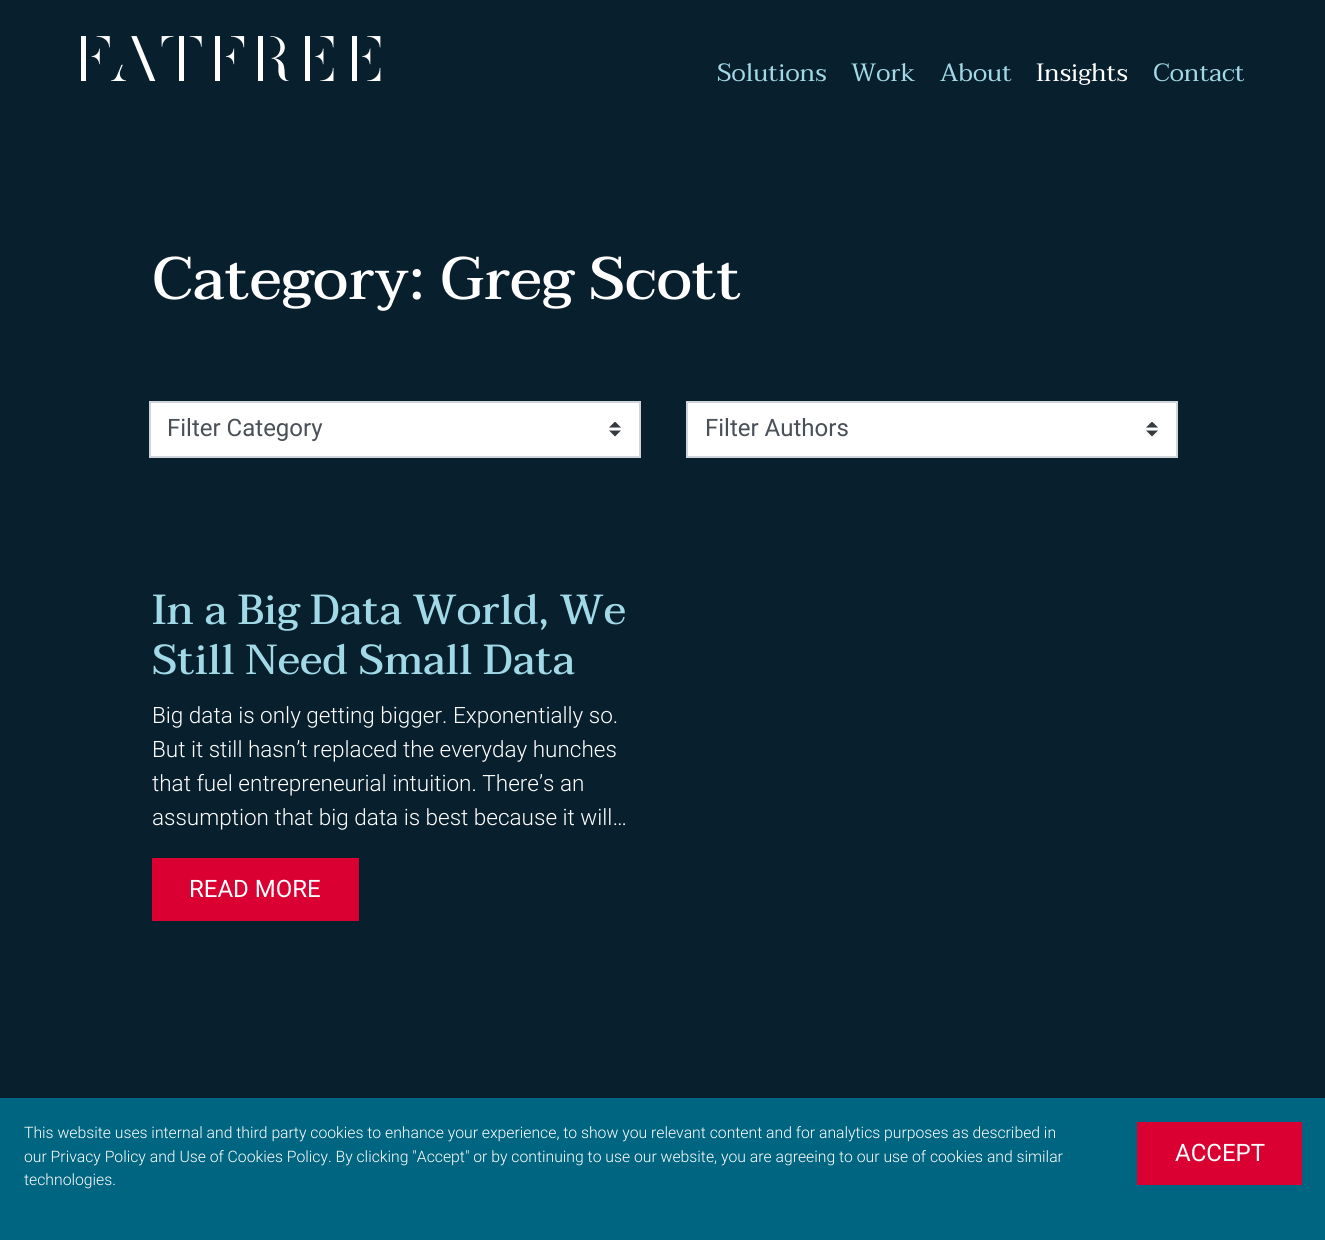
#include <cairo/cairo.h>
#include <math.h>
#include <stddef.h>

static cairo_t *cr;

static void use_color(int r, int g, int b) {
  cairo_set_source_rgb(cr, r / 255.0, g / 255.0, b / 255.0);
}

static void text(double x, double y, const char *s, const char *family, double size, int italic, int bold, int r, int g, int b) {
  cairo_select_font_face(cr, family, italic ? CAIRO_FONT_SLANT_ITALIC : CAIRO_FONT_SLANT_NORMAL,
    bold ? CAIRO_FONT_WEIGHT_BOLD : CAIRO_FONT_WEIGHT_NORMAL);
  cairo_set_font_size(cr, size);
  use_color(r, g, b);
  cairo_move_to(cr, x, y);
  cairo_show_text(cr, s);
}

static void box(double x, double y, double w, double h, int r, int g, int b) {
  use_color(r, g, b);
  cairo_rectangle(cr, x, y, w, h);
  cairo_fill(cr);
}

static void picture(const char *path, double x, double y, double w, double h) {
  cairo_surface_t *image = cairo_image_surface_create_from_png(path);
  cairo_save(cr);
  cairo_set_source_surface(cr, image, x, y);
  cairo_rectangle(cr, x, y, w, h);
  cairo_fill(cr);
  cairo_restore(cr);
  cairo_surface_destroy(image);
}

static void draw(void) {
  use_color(8, 31, 45);
  cairo_paint(cr);
  picture("img_01.png", 81, 36, 300, 45);
  box(151, 403, 488, 53, 255, 255, 255);
  picture("img_02.png", 609, 422, 12, 15);
  cairo_rectangle(cr, 150, 402, 490, 55);
  use_color(206, 212, 218);
  cairo_stroke(cr);
  box(688, 403, 488, 53, 255, 255, 255);
  picture("img_02.png", 1146, 422, 12, 15);
  cairo_rectangle(cr, 687, 402, 490, 55);
  use_color(206, 212, 218);
  cairo_stroke(cr);
  box(152, 858, 207, 63, 219, 0, 50);
  box(0, 1098, 1325, 142, 0, 101, 128);
  box(1137, 1122, 165, 63, 219, 0, 50);
  text(717, 81, "Solutions", "Taviraj", 25, 0, 0, 162, 217, 231);
  text(851, 81, "Work", "Taviraj", 25, 0, 0, 162, 217, 231);
  text(940, 81, "About", "Taviraj", 25, 0, 0, 162, 217, 231);
  text(1036, 81, "Insights", "Taviraj", 25, 0, 0, 255, 255, 255);
  text(1153, 81, "Contact", "Taviraj", 25, 0, 0, 162, 217, 231);
  text(152, 299, "Category: Greg Scott", "Taviraj Medium", 60, 0, 0, 255, 255, 255);
  text(167, 436, "Filter Category", "Roboto", 24, 0, 0, 73, 80, 87);
  text(705, 436, "Filter Authors", "Roboto", 24, 0, 0, 73, 80, 87);
  text(152, 624, "In a Big Data World, We", "Taviraj Medium", 42, 0, 0, 162, 217, 231);
  text(152, 674, "Still Need Small Data", "Taviraj Medium", 42, 0, 0, 162, 217, 231);
  text(152, 723, "Big data is only getting bigger. Exponentially so.", "Roboto Light", 22.5, 0, 0, 255, 255, 255);
  text(152, 757, "But it still hasn’t replaced the everyday hunches", "Roboto Light", 22.5, 0, 0, 255, 255, 255);
  text(152, 791, "that fuel entrepreneurial intuition. There’s an", "Roboto Light", 22.5, 0, 0, 255, 255, 255);
  text(152, 825, "assumption that big data is best because it will…", "Roboto Light", 22.5, 0, 0, 255, 255, 255);
  text(189, 897, "READ MORE", "Roboto", 24, 0, 0, 255, 255, 255);
  text(24, 1138, "This website uses internal and third party cookies to enhance your experience, to show you relevant content and for analytics purposes as described in", "Roboto Light", 15.75, 0, 0, 255, 255, 255);
  text(24, 1162, "our Privacy Policy and Use of Cookies Policy. By clicking \"Accept\" or by continuing to use our website, you are agreeing to our use of cookies and similar", "Roboto Light", 15.75, 0, 0, 255, 255, 255);
  text(24, 1185, "technologies.", "Roboto Light", 15.75, 0, 0, 255, 255, 255);
  text(1175, 1161, "ACCEPT", "Roboto", 24, 0, 0, 255, 255, 255);
}

int main(void) {
  cairo_surface_t *surface = cairo_image_surface_create(CAIRO_FORMAT_RGB24, 1325, 1240);
  cr = cairo_create(surface);
  cairo_font_options_t *options = cairo_font_options_create();
  cairo_font_options_set_hint_metrics(options, CAIRO_HINT_METRICS_OFF);
  cairo_font_options_set_hint_style(options, CAIRO_HINT_STYLE_NONE);
  cairo_set_font_options(cr, options);
  cairo_set_miter_limit(cr, 4);
  draw();
  cairo_surface_write_to_png(surface, "out.png");
  cairo_font_options_destroy(options);
  cairo_destroy(cr);
  cairo_surface_destroy(surface);
  return 0;
}
